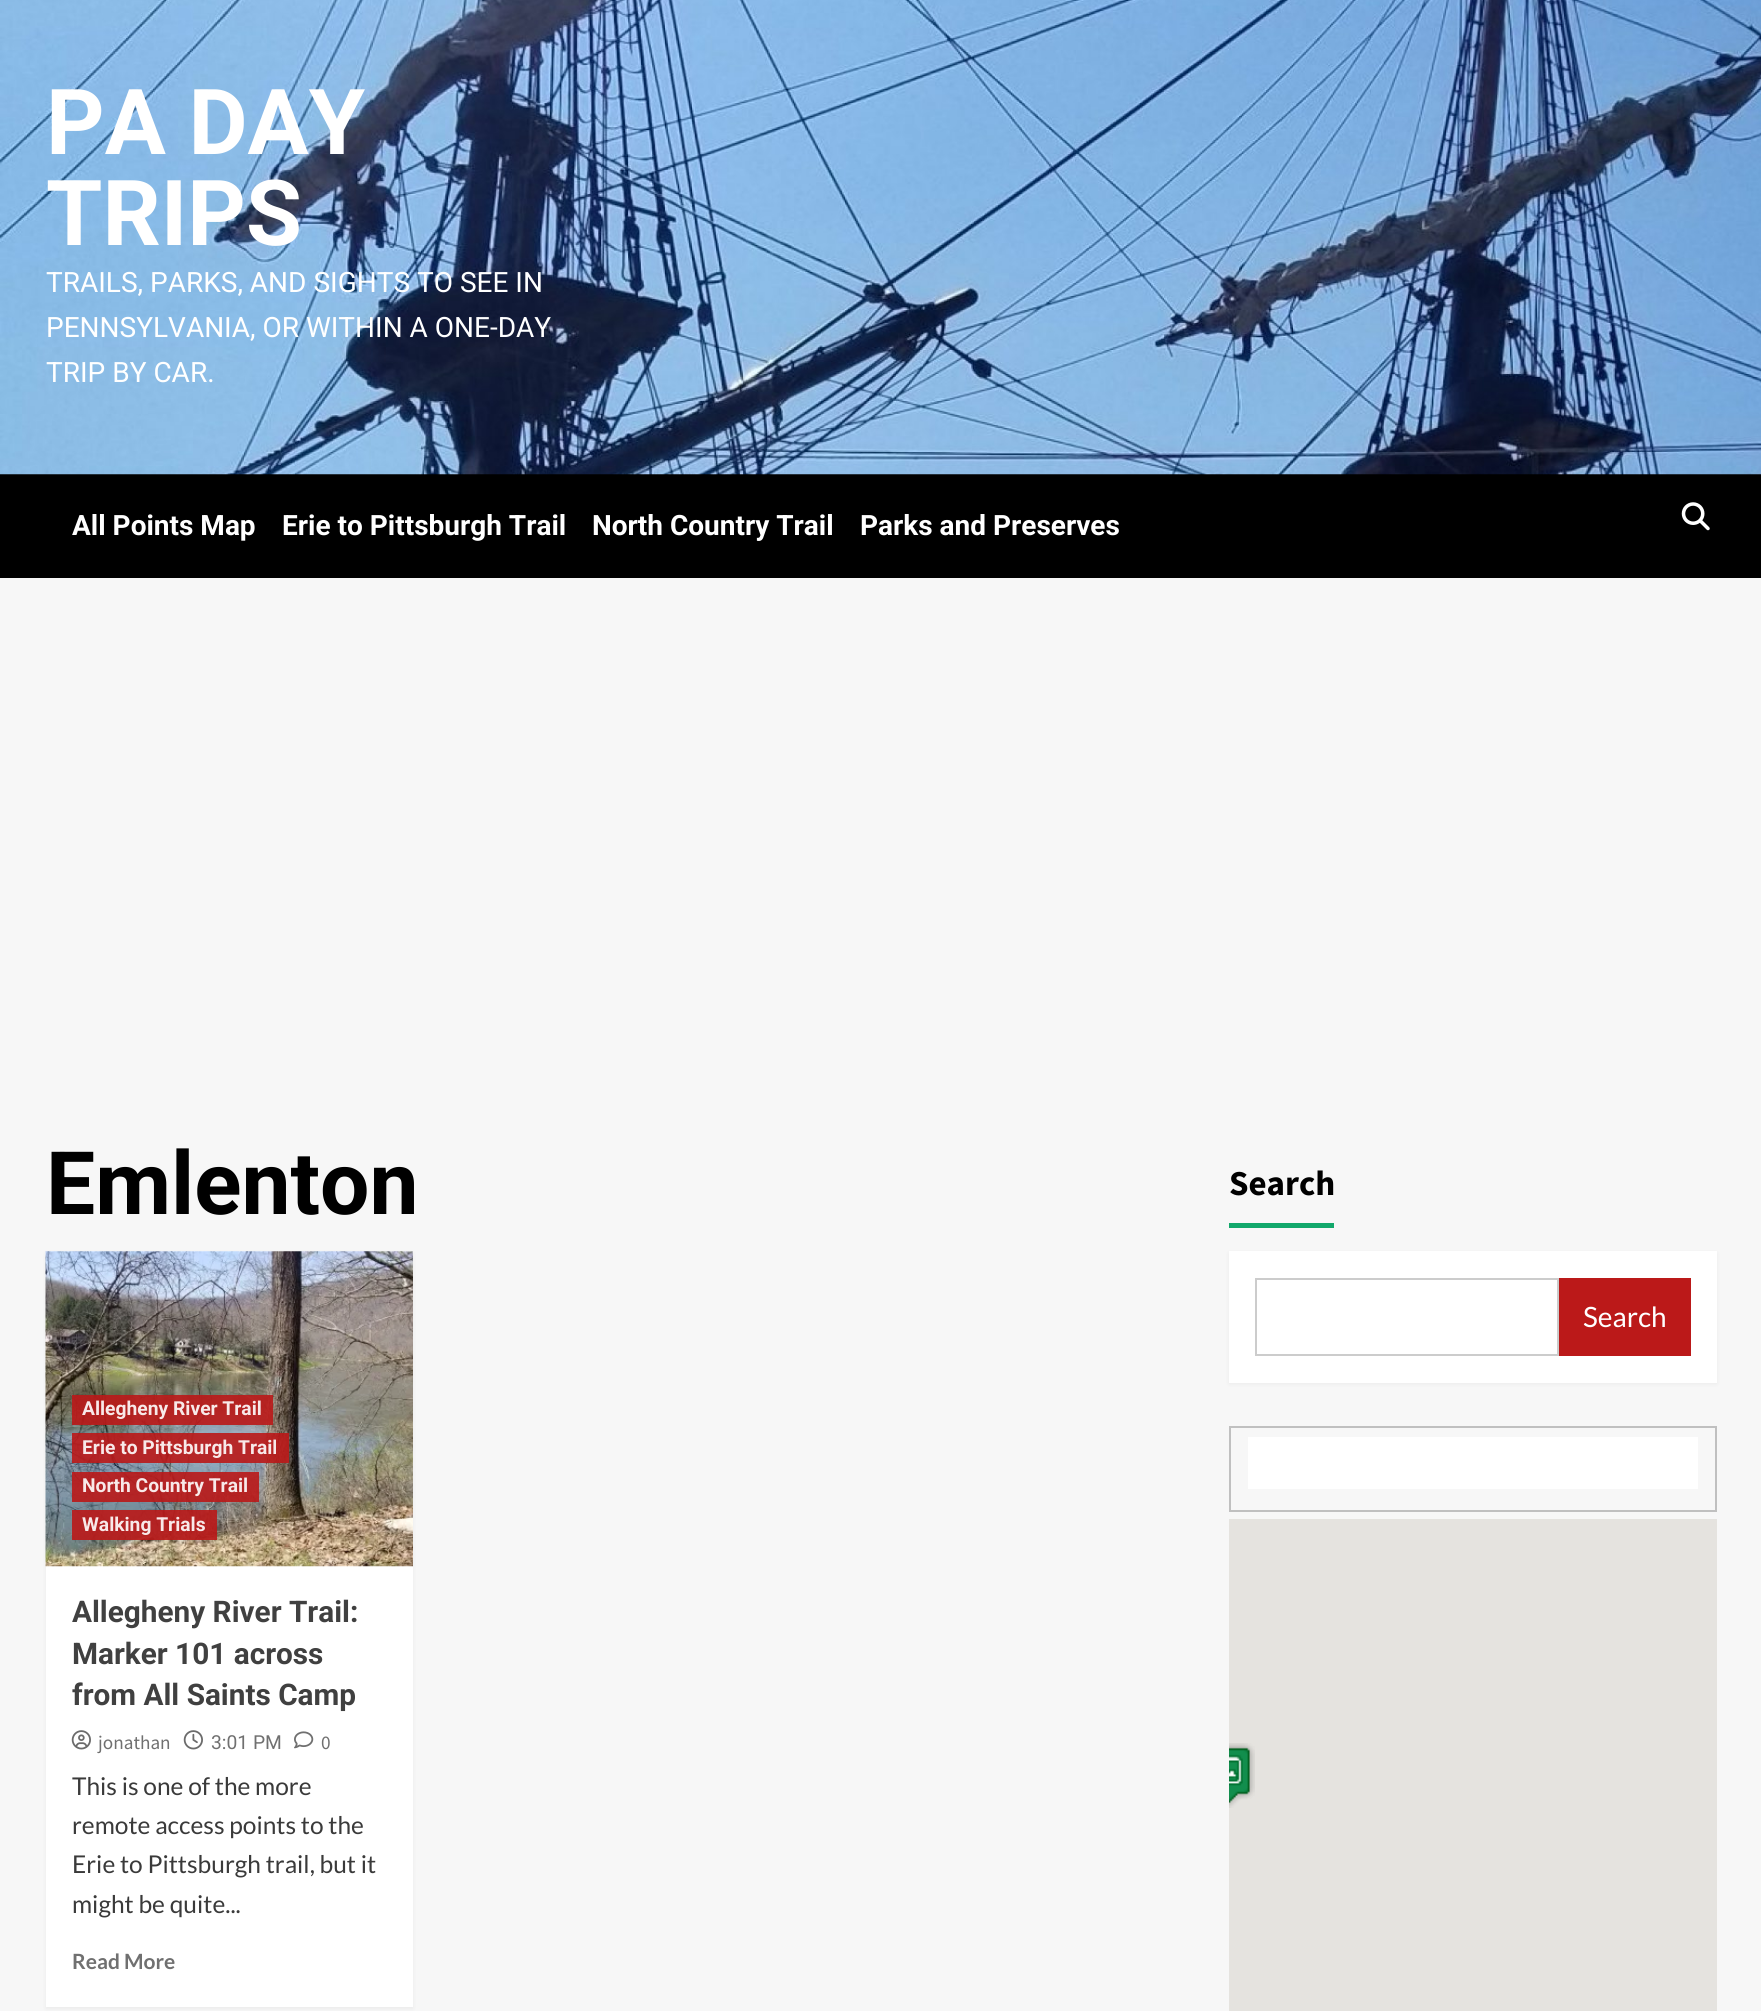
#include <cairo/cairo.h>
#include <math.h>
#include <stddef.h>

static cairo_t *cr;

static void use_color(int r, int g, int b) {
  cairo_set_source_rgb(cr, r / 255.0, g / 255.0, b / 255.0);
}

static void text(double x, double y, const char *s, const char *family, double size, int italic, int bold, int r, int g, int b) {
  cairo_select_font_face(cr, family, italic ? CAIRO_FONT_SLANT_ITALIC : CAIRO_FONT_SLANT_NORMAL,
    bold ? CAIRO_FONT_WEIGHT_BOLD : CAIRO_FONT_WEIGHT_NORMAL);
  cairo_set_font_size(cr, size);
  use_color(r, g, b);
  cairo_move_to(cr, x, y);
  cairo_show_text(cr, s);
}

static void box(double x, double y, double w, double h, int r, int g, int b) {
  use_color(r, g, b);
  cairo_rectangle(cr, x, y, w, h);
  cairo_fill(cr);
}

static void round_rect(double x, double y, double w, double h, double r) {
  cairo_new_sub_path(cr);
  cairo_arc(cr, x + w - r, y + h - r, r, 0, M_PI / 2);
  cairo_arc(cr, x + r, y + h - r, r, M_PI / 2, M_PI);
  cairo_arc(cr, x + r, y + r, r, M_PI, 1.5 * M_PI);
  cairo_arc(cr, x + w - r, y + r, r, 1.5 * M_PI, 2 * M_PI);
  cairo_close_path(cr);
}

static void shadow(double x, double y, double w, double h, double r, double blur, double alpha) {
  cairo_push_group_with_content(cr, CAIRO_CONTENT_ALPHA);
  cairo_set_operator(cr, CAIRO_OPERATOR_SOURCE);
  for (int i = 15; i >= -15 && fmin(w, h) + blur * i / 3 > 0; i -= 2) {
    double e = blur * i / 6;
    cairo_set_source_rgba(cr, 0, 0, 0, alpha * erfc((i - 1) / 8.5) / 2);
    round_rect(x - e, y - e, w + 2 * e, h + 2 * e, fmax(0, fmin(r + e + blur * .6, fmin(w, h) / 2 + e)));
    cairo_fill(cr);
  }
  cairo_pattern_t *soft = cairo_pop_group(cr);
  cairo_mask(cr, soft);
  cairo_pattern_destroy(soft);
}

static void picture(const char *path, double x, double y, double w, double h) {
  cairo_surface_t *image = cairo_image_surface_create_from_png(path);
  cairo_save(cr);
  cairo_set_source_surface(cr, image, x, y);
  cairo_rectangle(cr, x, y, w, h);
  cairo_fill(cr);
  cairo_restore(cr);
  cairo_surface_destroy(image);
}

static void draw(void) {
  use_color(247, 247, 247);
  cairo_paint(cr);
  box(0, 474, 1761, 104, 0, 0, 0);
  picture("img_01.png", 0, 0, 1761, 475);
  picture("img_02.png", 1681, 502, 29, 29);
  use_color(0, 0, 0);
  shadow(46, 1253, 367, 756, 0, 2, 0.05);
  box(46, 1251, 367, 756, 255, 255, 255);
  picture("img_03.png", 45, 1251, 368, 316);
  cairo_set_source_rgba(cr, 0.733, 0.098, 0.098, 0.9);
  cairo_rectangle(cr, 72, 1395, 201, 30);
  cairo_fill(cr);
  cairo_rectangle(cr, 72, 1433, 217, 30);
  cairo_fill(cr);
  cairo_rectangle(cr, 72, 1472, 187, 30);
  cairo_fill(cr);
  cairo_rectangle(cr, 72, 1510, 145, 30);
  cairo_fill(cr);
  picture("img_04.png", 71, 1730, 20, 20);
  picture("img_05.png", 183, 1730, 20, 20);
  picture("img_06.png", 294, 1731, 20, 18);
  box(1229, 1223, 105, 5, 18, 168, 107);
  use_color(0, 0, 0);
  shadow(1229, 1253, 488, 131, 0, 2, 0.05);
  box(1229, 1251, 488, 132, 255, 255, 255);
  cairo_rectangle(cr, 1256, 1279, 302, 76);
  use_color(204, 204, 204);
  cairo_stroke(cr);
  box(1559, 1278, 132, 78, 187, 25, 25);
  cairo_rectangle(cr, 1230, 1427, 486, 84);
  use_color(192, 192, 192);
  cairo_stroke(cr);
  box(1248, 1437, 450, 52, 255, 255, 255);
  box(1229, 1519, 488, 492, 229, 227, 223);
  picture("img_07.png", 1229, 1743, 26, 65);
  text(46, 154, "PA DAY", "Roboto", 91, 0, 1, 255, 255, 255);
  text(46, 245, "TRIPS", "Roboto", 91, 0, 1, 255, 255, 255);
  text(46, 292, "TRAILS, PARKS, AND SIGHTS TO SEE IN", "Roboto", 28, 0, 0, 255, 255, 255);
  text(46, 337, "PENNSYLVANIA, OR WITHIN A ONE-DAY", "Roboto", 28, 0, 0, 255, 255, 255);
  text(46, 382, "TRIP BY CAR.", "Roboto", 28, 0, 0, 255, 255, 255);
  text(72, 535, "All Points Map", "Roboto", 28, 0, 1, 255, 255, 255);
  text(282, 535, "Erie to Pittsburgh Trail", "Roboto", 28, 0, 1, 255, 255, 255);
  text(592, 535, "North Country Trail", "Roboto", 28, 0, 1, 255, 255, 255);
  text(860, 535, "Parks and Preserves", "Roboto", 28, 0, 1, 255, 255, 255);
  text(46, 1214, "Emlenton", "Roboto", 87.5, 0, 1, 0, 0, 0);
  text(82, 1415, "Allegheny River Trail", "Roboto", 19.25, 0, 1, 248, 233, 233);
  text(82, 1454, "Erie to Pittsburgh Trail", "Roboto", 19.25, 0, 1, 248, 233, 233);
  text(82, 1492, "North Country Trail", "Roboto", 19.25, 0, 1, 248, 233, 233);
  text(82, 1531, "Walking Trials", "Roboto", 19.25, 0, 1, 248, 233, 233);
  text(72, 1622, "Allegheny River Trail:", "Roboto", 29.75, 0, 1, 64, 64, 64);
  text(72, 1664, "Marker 101 across", "Roboto", 29.75, 0, 1, 64, 64, 64);
  text(72, 1705, "from All Saints Camp", "Roboto", 29.75, 0, 1, 64, 64, 64);
  text(98, 1749, "jonathan", "Source Sans Pro", 19.25, 0, 0, 112, 112, 112);
  text(211, 1749, "3:01 PM", "Roboto", 19.25, 0, 0, 112, 112, 112);
  text(321, 1749, "0", "Source Sans Pro", 19.25, 0, 0, 112, 112, 112);
  text(72, 1795, "This is one of the more", "Lato", 24.5, 0, 0, 58, 58, 58);
  text(72, 1834, "remote access points to the", "Lato", 24.5, 0, 0, 58, 58, 58);
  text(72, 1873, "Erie to Pittsburgh trail, but it", "Lato", 24.5, 0, 0, 58, 58, 58);
  text(72, 1913, "might be quite...", "Lato", 24.5, 0, 0, 58, 58, 58);
  text(72, 1969, "Read More", "Lato", 21, 0, 1, 112, 112, 112);
  text(1229, 1195, "Search", "Source Sans Pro", 35, 0, 1, 0, 0, 0);
  text(1583, 1327, "Search", "Lato", 28, 0, 0, 255, 255, 255);
}

int main(void) {
  cairo_surface_t *surface = cairo_image_surface_create(CAIRO_FORMAT_RGB24, 1761, 2011);
  cr = cairo_create(surface);
  cairo_font_options_t *options = cairo_font_options_create();
  cairo_font_options_set_hint_metrics(options, CAIRO_HINT_METRICS_OFF);
  cairo_font_options_set_hint_style(options, CAIRO_HINT_STYLE_NONE);
  cairo_set_font_options(cr, options);
  cairo_set_miter_limit(cr, 4);
  draw();
  cairo_surface_write_to_png(surface, "out.png");
  cairo_font_options_destroy(options);
  cairo_destroy(cr);
  cairo_surface_destroy(surface);
  return 0;
}
